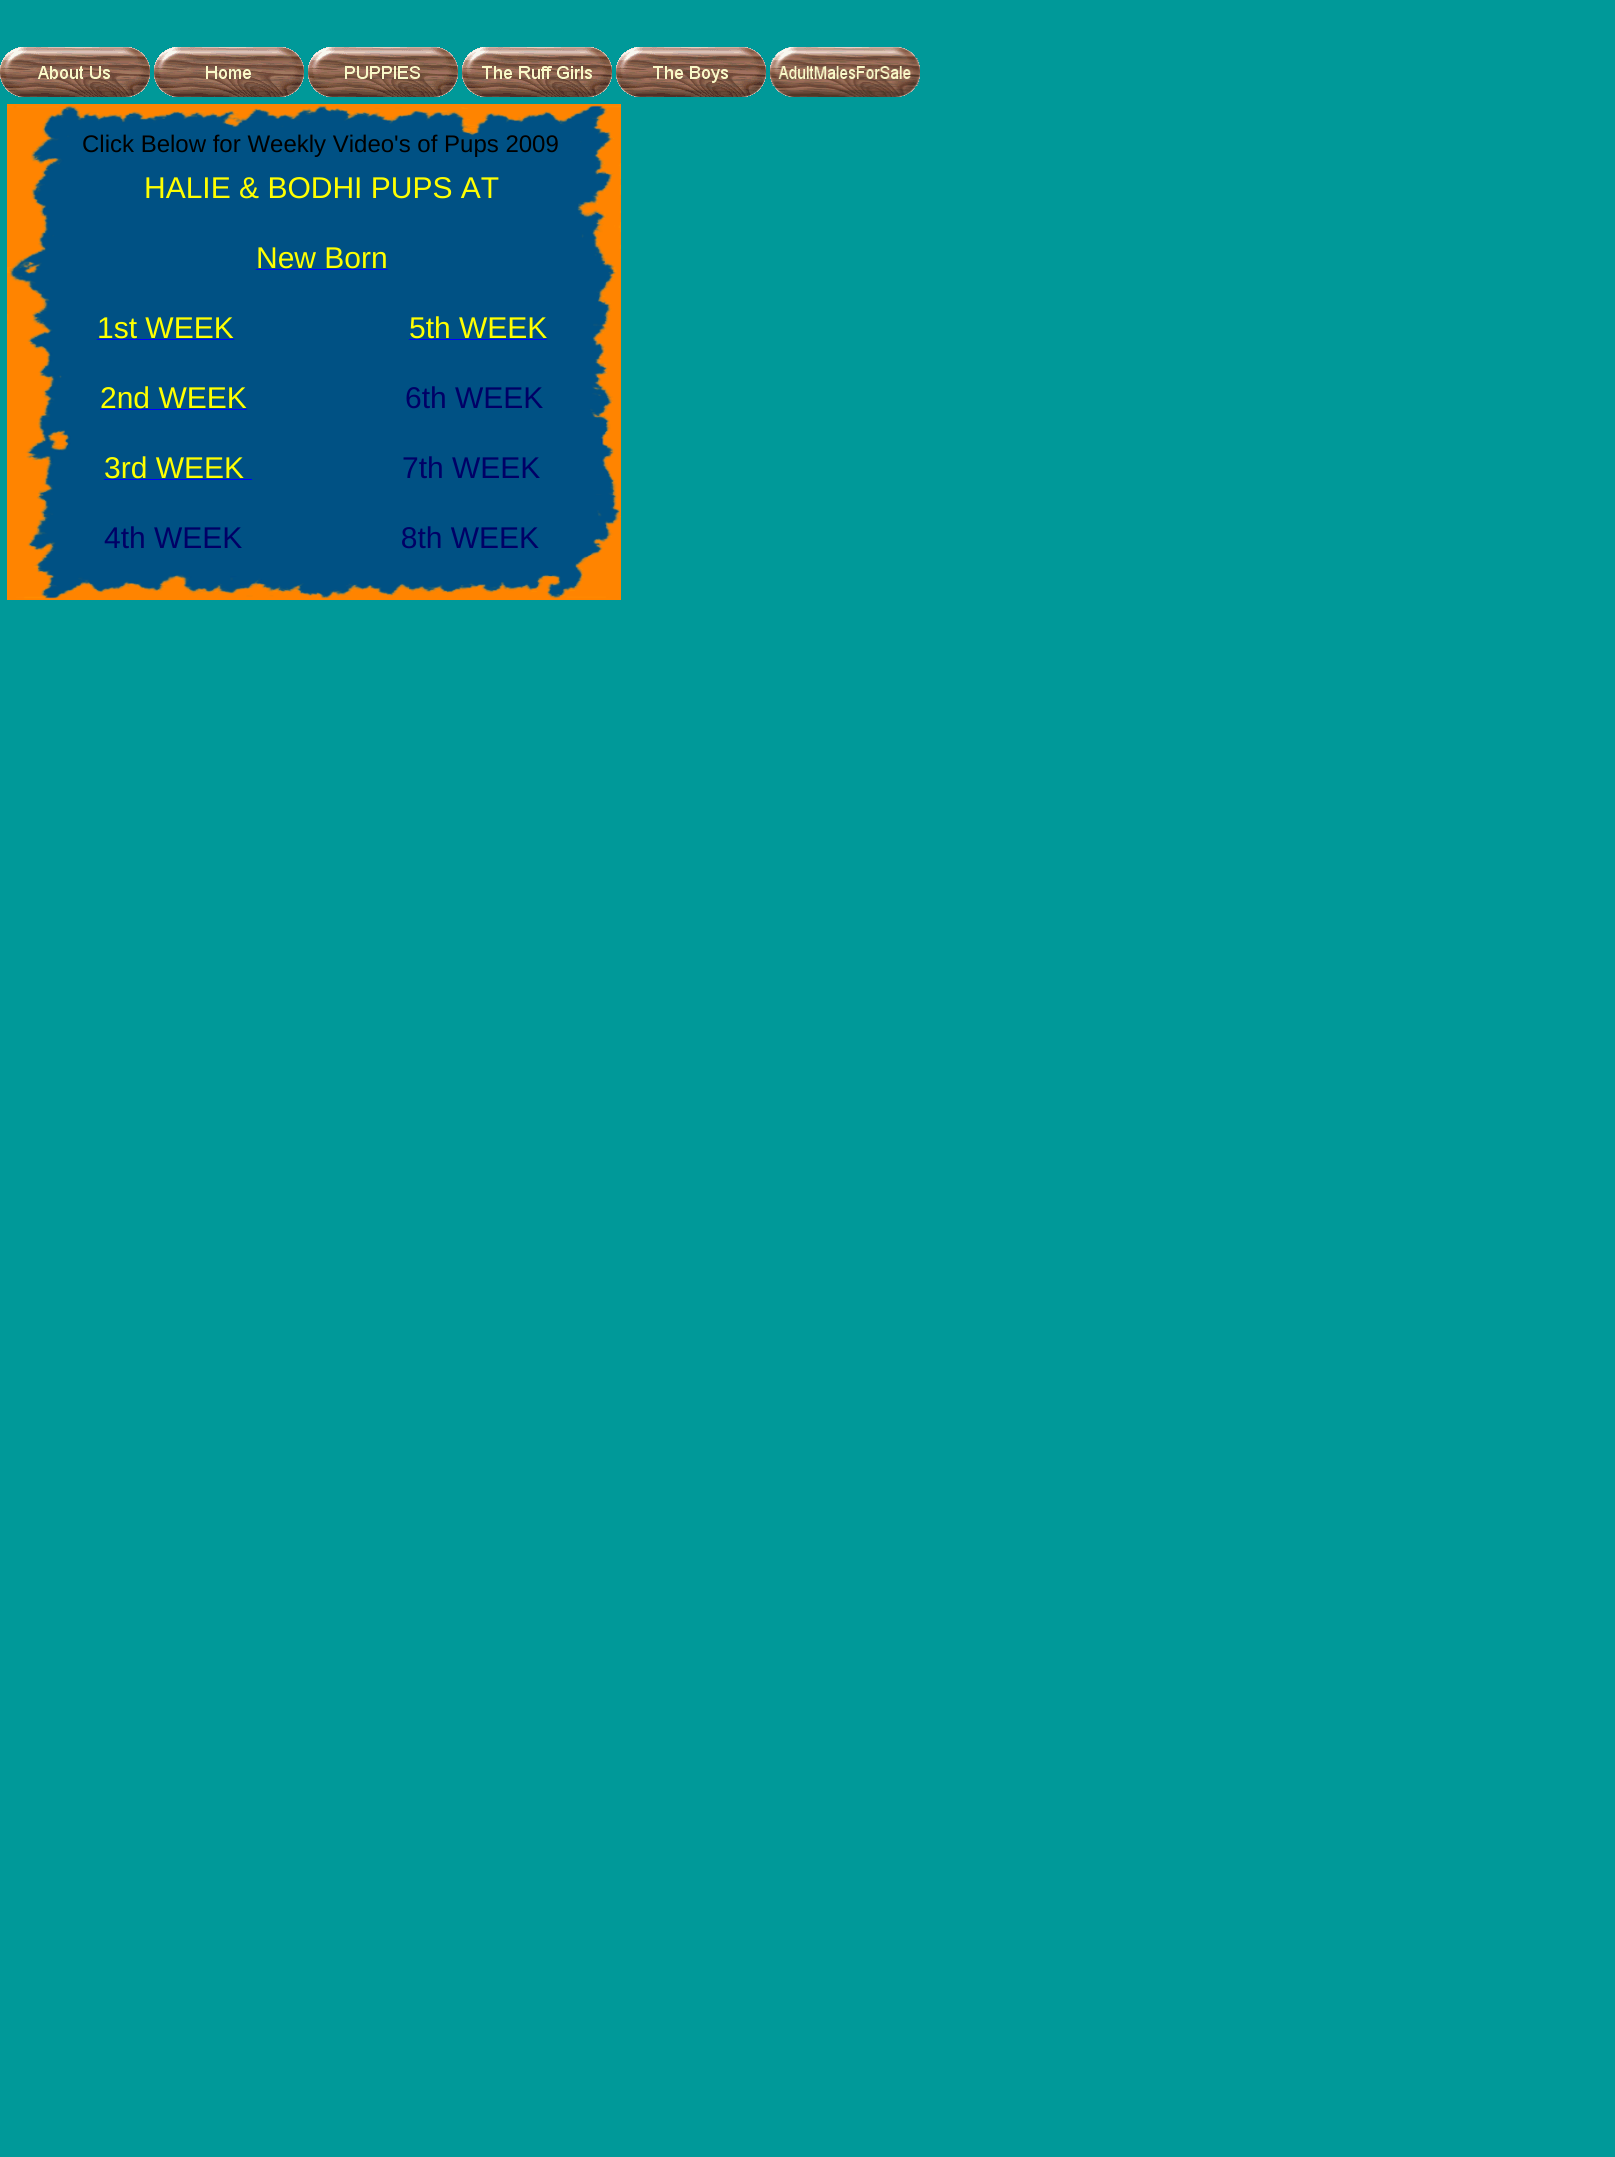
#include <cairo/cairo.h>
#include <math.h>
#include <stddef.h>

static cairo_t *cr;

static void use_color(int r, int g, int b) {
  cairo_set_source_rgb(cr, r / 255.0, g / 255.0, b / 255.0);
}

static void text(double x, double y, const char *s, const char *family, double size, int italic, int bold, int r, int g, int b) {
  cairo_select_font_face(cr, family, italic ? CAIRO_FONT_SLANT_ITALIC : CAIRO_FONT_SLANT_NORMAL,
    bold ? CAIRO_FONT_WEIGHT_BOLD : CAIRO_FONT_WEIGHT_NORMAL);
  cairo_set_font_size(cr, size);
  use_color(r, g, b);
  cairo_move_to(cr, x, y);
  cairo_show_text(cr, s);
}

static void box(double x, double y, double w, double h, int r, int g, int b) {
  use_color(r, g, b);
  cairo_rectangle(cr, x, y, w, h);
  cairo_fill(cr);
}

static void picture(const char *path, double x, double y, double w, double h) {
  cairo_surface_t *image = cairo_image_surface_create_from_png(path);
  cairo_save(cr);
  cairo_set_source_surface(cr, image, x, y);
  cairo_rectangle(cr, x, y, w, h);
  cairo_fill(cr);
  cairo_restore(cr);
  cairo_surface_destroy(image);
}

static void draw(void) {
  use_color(0, 153, 153);
  cairo_paint(cr);
  picture("img_01.png", 0, 47, 150, 50);
  picture("img_02.png", 154, 47, 150, 50);
  picture("img_03.png", 308, 47, 150, 50);
  picture("img_04.png", 462, 47, 150, 50);
  picture("img_05.png", 616, 47, 150, 50);
  picture("img_06.png", 770, 47, 150, 50);
  picture("img_07.png", 7, 104, 614, 496);
  box(256, 269, 132, 1, 0, 0, 255);
  box(97, 339, 137, 1, 0, 0, 255);
  box(409, 339, 138, 1, 0, 0, 255);
  box(100, 409, 147, 1, 0, 0, 255);
  box(104, 479, 148, 1, 0, 0, 255);
  text(82, 152, "Click Below for Weekly Video's of Pups 2009", "Liberation Sans", 24, 0, 0, 0, 0, 0);
  text(144, 198, "HALIE & BODHI PUPS AT", "Liberation Sans", 30, 0, 0, 255, 255, 0);
  text(256, 268, "New Born", "Liberation Sans", 30, 0, 0, 255, 255, 0);
  text(97, 338, "1st WEEK", "Liberation Sans", 30, 0, 0, 255, 255, 0);
  text(409, 338, "5th WEEK", "Liberation Sans", 30, 0, 0, 255, 255, 0);
  text(100, 408, "2nd WEEK", "Liberation Sans", 30, 0, 0, 255, 255, 0);
  text(405, 408, "6th WEEK", "Liberation Sans", 30, 0, 0, 0, 0, 102);
  text(104, 478, "3rd WEEK", "Liberation Sans", 30, 0, 0, 255, 255, 0);
  text(402, 478, "7th WEEK", "Liberation Sans", 30, 0, 0, 0, 0, 102);
  text(104, 548, "4th WEEK                   8th WEEK", "Liberation Sans", 30, 0, 0, 0, 0, 102);
}

int main(void) {
  cairo_surface_t *surface = cairo_image_surface_create(CAIRO_FORMAT_RGB24, 1615, 2157);
  cr = cairo_create(surface);
  cairo_font_options_t *options = cairo_font_options_create();
  cairo_font_options_set_hint_metrics(options, CAIRO_HINT_METRICS_OFF);
  cairo_font_options_set_hint_style(options, CAIRO_HINT_STYLE_NONE);
  cairo_set_font_options(cr, options);
  cairo_set_miter_limit(cr, 4);
  draw();
  cairo_surface_write_to_png(surface, "out.png");
  cairo_font_options_destroy(options);
  cairo_destroy(cr);
  cairo_surface_destroy(surface);
  return 0;
}
